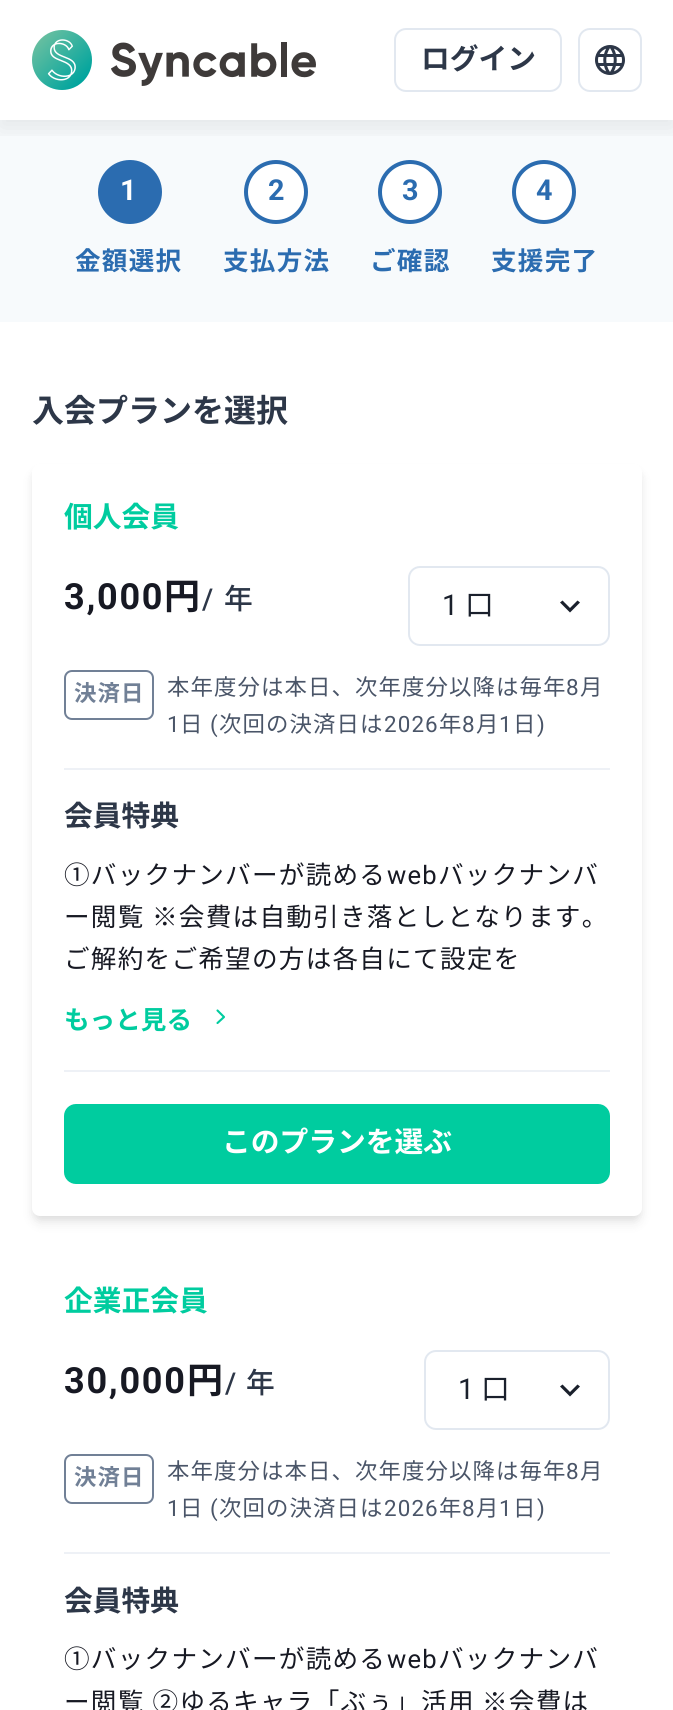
#include <cairo/cairo.h>
#include <math.h>
#include <stddef.h>

static cairo_t *cr;

static void use_color(int r, int g, int b) {
  cairo_set_source_rgb(cr, r / 255.0, g / 255.0, b / 255.0);
}

static void text(double x, double y, const char *s, const char *family, double size, int italic, int bold, int r, int g, int b) {
  cairo_select_font_face(cr, family, italic ? CAIRO_FONT_SLANT_ITALIC : CAIRO_FONT_SLANT_NORMAL,
    bold ? CAIRO_FONT_WEIGHT_BOLD : CAIRO_FONT_WEIGHT_NORMAL);
  cairo_set_font_size(cr, size);
  use_color(r, g, b);
  cairo_move_to(cr, x, y);
  cairo_show_text(cr, s);
}

static void spaced_text(double x, double y, const char *s, double letter, double word) {
  cairo_move_to(cr, x, y);
  while (*s) {
    char ch[5] = {0};
    int n = 0;
    do ch[n++] = *s++; while ((*s & 0xC0) == 0x80);
    cairo_show_text(cr, ch);
    cairo_rel_move_to(cr, letter + word * (*ch == ' '), 0);
  }
}

static void box(double x, double y, double w, double h, int r, int g, int b) {
  use_color(r, g, b);
  cairo_rectangle(cr, x, y, w, h);
  cairo_fill(cr);
}

static void round_rect(double x, double y, double w, double h, double r) {
  cairo_new_sub_path(cr);
  cairo_arc(cr, x + w - r, y + h - r, r, 0, M_PI / 2);
  cairo_arc(cr, x + r, y + h - r, r, M_PI / 2, M_PI);
  cairo_arc(cr, x + r, y + r, r, M_PI, 1.5 * M_PI);
  cairo_arc(cr, x + w - r, y + r, r, 1.5 * M_PI, 2 * M_PI);
  cairo_close_path(cr);
}

static void shadow(double x, double y, double w, double h, double r, double blur, double alpha) {
  cairo_push_group_with_content(cr, CAIRO_CONTENT_ALPHA);
  cairo_set_operator(cr, CAIRO_OPERATOR_SOURCE);
  for (int i = 15; i >= -15 && fmin(w, h) + blur * i / 3 > 0; i -= 2) {
    double e = blur * i / 6;
    cairo_set_source_rgba(cr, 0, 0, 0, alpha * erfc((i - 1) / 8.5) / 2);
    round_rect(x - e, y - e, w + 2 * e, h + 2 * e, fmax(0, fmin(r + e + blur * .6, fmin(w, h) / 2 + e)));
    cairo_fill(cr);
  }
  cairo_pattern_t *soft = cairo_pop_group(cr);
  cairo_mask(cr, soft);
  cairo_pattern_destroy(soft);
}

static void picture(const char *path, double x, double y, double w, double h) {
  cairo_surface_t *image = cairo_image_surface_create_from_png(path);
  cairo_save(cr);
  cairo_set_source_surface(cr, image, x, y);
  cairo_rectangle(cr, x, y, w, h);
  cairo_fill(cr);
  cairo_restore(cr);
  cairo_surface_destroy(image);
}

static void draw(void) {
  use_color(255, 255, 255);
  cairo_paint(cr);
  box(0, 120, 673, 202, 247, 250, 252);
  use_color(43, 108, 176);
  cairo_arc(cr, 130, 192, 30, 0, 2 * M_PI);
  cairo_fill_preserve(cr);
  cairo_set_line_width(cr, 4);
  cairo_stroke(cr);
  use_color(255, 255, 255);
  cairo_arc(cr, 276, 192, 30, 0, 2 * M_PI);
  cairo_fill_preserve(cr);
  use_color(43, 108, 176);
  cairo_stroke(cr);
  use_color(255, 255, 255);
  cairo_arc(cr, 410, 192, 30, 0, 2 * M_PI);
  cairo_fill_preserve(cr);
  use_color(43, 108, 176);
  cairo_stroke(cr);
  use_color(255, 255, 255);
  cairo_arc(cr, 544, 192, 30, 0, 2 * M_PI);
  cairo_fill_preserve(cr);
  use_color(43, 108, 176);
  cairo_stroke(cr);
  cairo_save(cr);
  cairo_rectangle(cr, 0, 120, 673, 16);
  cairo_clip(cr);
  use_color(0, 0, 0);
  shadow(0, 8, 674, 120, 0, 12, 0.08);
  cairo_restore(cr);
  picture("img_01.png", 32, 30, 284, 60);
  round_rect(395, 29, 166, 62, 11);
  use_color(226, 232, 240);
  cairo_set_line_width(cr, 2);
  cairo_stroke(cr);
  round_rect(579, 29, 62, 62, 11);
  cairo_stroke(cr);
  picture("img_02.png", 595, 45, 30, 30);
  use_color(0, 0, 0);
  shadow(34, 470, 606, 748, 6, 4, 0.06);
  shadow(34, 474, 606, 748, 6, 6, 0.1);
  use_color(255, 255, 255);
  round_rect(32, 464, 610, 752, 8);
  cairo_fill(cr);
  round_rect(409, 567, 200, 78, 11);
  use_color(226, 232, 240);
  cairo_stroke(cr);
  use_color(26, 32, 44);
  cairo_new_path(cr);
  cairo_move_to(cr, 577.5, 600.5);
  cairo_line_to(cr, 570, 608);
  cairo_line_to(cr, 562.5, 600.5);
  cairo_line_to(cr, 560, 602.5);
  cairo_line_to(cr, 570, 612.5);
  cairo_line_to(cr, 580, 602.5);
  cairo_close_path(cr);
  cairo_fill(cr);
  round_rect(65, 671, 88, 48, 7);
  use_color(113, 128, 150);
  cairo_stroke(cr);
  box(64, 768, 546, 2, 238, 241, 246);
  cairo_new_path(cr);
  cairo_move_to(cr, 217.5, 1023);
  cairo_line_to(cr, 224, 1017);
  cairo_line_to(cr, 217.5, 1010.5);
  use_color(0, 204, 159);
  cairo_set_line_width(cr, 2.1);
  cairo_set_line_cap(cr, CAIRO_LINE_CAP_ROUND);
  cairo_set_line_join(cr, CAIRO_LINE_JOIN_ROUND);
  cairo_stroke(cr);
  box(64, 1070, 546, 2, 238, 241, 246);
  use_color(0, 204, 159);
  round_rect(64, 1104, 546, 80, 12);
  cairo_fill(cr);
  round_rect(425, 1351, 184, 78, 11);
  use_color(226, 232, 240);
  cairo_set_line_width(cr, 2);
  cairo_set_line_cap(cr, CAIRO_LINE_CAP_BUTT);
  cairo_set_line_join(cr, CAIRO_LINE_JOIN_MITER);
  cairo_stroke(cr);
  use_color(26, 32, 44);
  cairo_new_path(cr);
  cairo_move_to(cr, 577.5, 1384.5);
  cairo_line_to(cr, 570, 1392);
  cairo_line_to(cr, 562.5, 1384.5);
  cairo_line_to(cr, 560, 1386.5);
  cairo_line_to(cr, 570, 1396.5);
  cairo_line_to(cr, 580, 1386.5);
  cairo_close_path(cr);
  cairo_fill(cr);
  round_rect(65, 1455, 88, 48, 7);
  use_color(113, 128, 150);
  cairo_stroke(cr);
  box(64, 1552, 546, 2, 238, 241, 246);
  text(421, 69, "ログイン", "Noto Sans CJK JP", 28.75, 0, 1, 45, 55, 72);
  cairo_select_font_face(cr, "Roboto", CAIRO_FONT_SLANT_NORMAL, CAIRO_FONT_WEIGHT_BOLD);
  use_color(255, 255, 255);
  spaced_text(120, 200, "1", 1, 0);
  cairo_select_font_face(cr, "Noto Sans CJK JP", CAIRO_FONT_SLANT_NORMAL, CAIRO_FONT_WEIGHT_BOLD);
  cairo_set_font_size(cr, 25.6);
  use_color(43, 108, 176);
  spaced_text(75, 270, "金額選択", 1.25, 0);
  cairo_select_font_face(cr, "Roboto", CAIRO_FONT_SLANT_NORMAL, CAIRO_FONT_WEIGHT_BOLD);
  cairo_set_font_size(cr, 28.75);
  spaced_text(268, 200, "2", 1, 0);
  cairo_select_font_face(cr, "Noto Sans CJK JP", CAIRO_FONT_SLANT_NORMAL, CAIRO_FONT_WEIGHT_BOLD);
  cairo_set_font_size(cr, 25.6);
  spaced_text(223, 270, "支払方法", 1.25, 0);
  cairo_select_font_face(cr, "Roboto", CAIRO_FONT_SLANT_NORMAL, CAIRO_FONT_WEIGHT_BOLD);
  cairo_set_font_size(cr, 28.75);
  spaced_text(402, 200, "3", 1, 0);
  cairo_select_font_face(cr, "Noto Sans CJK JP", CAIRO_FONT_SLANT_NORMAL, CAIRO_FONT_WEIGHT_BOLD);
  cairo_set_font_size(cr, 25.6);
  spaced_text(370, 270, "ご確認", 1.25, 0);
  cairo_select_font_face(cr, "Roboto", CAIRO_FONT_SLANT_NORMAL, CAIRO_FONT_WEIGHT_BOLD);
  cairo_set_font_size(cr, 28.75);
  spaced_text(536, 200, "4", 1, 0);
  cairo_select_font_face(cr, "Noto Sans CJK JP", CAIRO_FONT_SLANT_NORMAL, CAIRO_FONT_WEIGHT_BOLD);
  cairo_set_font_size(cr, 25.6);
  spaced_text(491, 270, "支援完了", 1.25, 0);
  text(32, 422, "入会プランを選択", "Noto Sans CJK JP", 32, 0, 1, 45, 55, 72);
  text(64, 527, "個人会員", "Noto Sans CJK JP", 28.75, 0, 1, 0, 204, 159);
  cairo_select_font_face(cr, "Roboto", CAIRO_FONT_SLANT_NORMAL, CAIRO_FONT_WEIGHT_BOLD);
  cairo_set_font_size(cr, 36);
  use_color(23, 25, 35);
  spaced_text(64, 609, "3,000", 1.75, 0);
  cairo_select_font_face(cr, "Noto Sans CJK JP", CAIRO_FONT_SLANT_NORMAL, CAIRO_FONT_WEIGHT_BOLD);
  spaced_text(164, 609, "円", 1.75, 0);
  cairo_select_font_face(cr, "Roboto Medium", CAIRO_FONT_SLANT_NORMAL, CAIRO_FONT_WEIGHT_NORMAL);
  cairo_set_font_size(cr, 28.75);
  use_color(45, 55, 72);
  spaced_text(202, 609, "/", 1, 0);
  cairo_select_font_face(cr, "Noto Sans CJK JP Medium", CAIRO_FONT_SLANT_NORMAL, CAIRO_FONT_WEIGHT_NORMAL);
  spaced_text(224, 609, "年", 1, 0);
  text(442, 615, "1", "Roboto", 28.75, 0, 0, 26, 32, 44);
  text(465, 615, "口", "Noto Sans CJK JP", 28.75, 0, 0, 26, 32, 44);
  cairo_select_font_face(cr, "Noto Sans CJK JP", CAIRO_FONT_SLANT_NORMAL, CAIRO_FONT_WEIGHT_BOLD);
  cairo_set_font_size(cr, 22.4);
  use_color(113, 128, 150);
  spaced_text(74, 701, "決済日", 1.1, 0);
  cairo_select_font_face(cr, "Noto Sans CJK JP", CAIRO_FONT_SLANT_NORMAL, CAIRO_FONT_WEIGHT_NORMAL);
  use_color(74, 85, 104);
  spaced_text(167, 695, "本年度分は本日、次年度分以降は毎年", 1.1, 0);
  cairo_select_font_face(cr, "Roboto", CAIRO_FONT_SLANT_NORMAL, CAIRO_FONT_WEIGHT_NORMAL);
  spaced_text(566, 695, "8", 1.1, 0);
  cairo_select_font_face(cr, "Noto Sans CJK JP", CAIRO_FONT_SLANT_NORMAL, CAIRO_FONT_WEIGHT_NORMAL);
  spaced_text(580, 695, "月", 1.1, 0);
  cairo_select_font_face(cr, "Roboto", CAIRO_FONT_SLANT_NORMAL, CAIRO_FONT_WEIGHT_NORMAL);
  spaced_text(167, 732, "1", 1.1, 0);
  cairo_select_font_face(cr, "Noto Sans CJK JP", CAIRO_FONT_SLANT_NORMAL, CAIRO_FONT_WEIGHT_NORMAL);
  spaced_text(180, 732, "日", 1.1, 0);
  cairo_select_font_face(cr, "Roboto", CAIRO_FONT_SLANT_NORMAL, CAIRO_FONT_WEIGHT_NORMAL);
  spaced_text(210, 732, "(", 1.1, 0);
  cairo_select_font_face(cr, "Noto Sans CJK JP", CAIRO_FONT_SLANT_NORMAL, CAIRO_FONT_WEIGHT_NORMAL);
  spaced_text(219, 732, "次回の決済日は", 1.1, 0);
  cairo_select_font_face(cr, "Roboto", CAIRO_FONT_SLANT_NORMAL, CAIRO_FONT_WEIGHT_NORMAL);
  spaced_text(384, 732, "2026", 1.1, 0);
  cairo_select_font_face(cr, "Noto Sans CJK JP", CAIRO_FONT_SLANT_NORMAL, CAIRO_FONT_WEIGHT_NORMAL);
  spaced_text(439, 732, "年", 1.1, 0);
  cairo_select_font_face(cr, "Roboto", CAIRO_FONT_SLANT_NORMAL, CAIRO_FONT_WEIGHT_NORMAL);
  spaced_text(462, 732, "8", 1.1, 0);
  cairo_select_font_face(cr, "Noto Sans CJK JP", CAIRO_FONT_SLANT_NORMAL, CAIRO_FONT_WEIGHT_NORMAL);
  spaced_text(476, 732, "月", 1.1, 0);
  cairo_select_font_face(cr, "Roboto", CAIRO_FONT_SLANT_NORMAL, CAIRO_FONT_WEIGHT_NORMAL);
  spaced_text(499, 732, "1", 1.1, 0);
  cairo_select_font_face(cr, "Noto Sans CJK JP", CAIRO_FONT_SLANT_NORMAL, CAIRO_FONT_WEIGHT_NORMAL);
  spaced_text(513, 732, "日", 1.1, 0);
  cairo_select_font_face(cr, "Roboto", CAIRO_FONT_SLANT_NORMAL, CAIRO_FONT_WEIGHT_NORMAL);
  spaced_text(537, 732, ")", 1.1, 0);
  text(64, 826, "会員特典", "Noto Sans CJK JP", 28.75, 0, 1, 45, 55, 72);
  cairo_select_font_face(cr, "Noto Sans CJK JP", CAIRO_FONT_SLANT_NORMAL, CAIRO_FONT_WEIGHT_NORMAL);
  cairo_set_font_size(cr, 25.6);
  use_color(23, 25, 35);
  spaced_text(64, 884, "①バックナンバーが読める", 1.25, 0);
  cairo_select_font_face(cr, "Roboto", CAIRO_FONT_SLANT_NORMAL, CAIRO_FONT_WEIGHT_NORMAL);
  spaced_text(387, 884, "web", 1.25, 0);
  cairo_select_font_face(cr, "Noto Sans CJK JP", CAIRO_FONT_SLANT_NORMAL, CAIRO_FONT_WEIGHT_NORMAL);
  spaced_text(438, 884, "バックナンバ", 1.25, 0);
  spaced_text(64, 926, "ー閲覧", 1.25, 0);
  spaced_text(152, 926, "※会費は自動引き落としとなります。", 1.25, 0);
  spaced_text(64, 968, "ご解約をご希望の方は各自にて設定を", 1.25, 0);
  text(64, 1029, "もっと見る", "Noto Sans CJK JP", 25.6, 0, 1, 0, 204, 159);
  text(222, 1152, "このプランを選ぶ", "Noto Sans CJK JP", 28.75, 0, 1, 255, 255, 255);
  text(64, 1311, "企業正会員", "Noto Sans CJK JP", 28.75, 0, 1, 0, 204, 159);
  cairo_select_font_face(cr, "Roboto", CAIRO_FONT_SLANT_NORMAL, CAIRO_FONT_WEIGHT_BOLD);
  cairo_set_font_size(cr, 36);
  use_color(23, 25, 35);
  spaced_text(64, 1393, "30,000", 1.75, 0);
  cairo_select_font_face(cr, "Noto Sans CJK JP", CAIRO_FONT_SLANT_NORMAL, CAIRO_FONT_WEIGHT_BOLD);
  spaced_text(187, 1393, "円", 1.75, 0);
  cairo_select_font_face(cr, "Roboto Medium", CAIRO_FONT_SLANT_NORMAL, CAIRO_FONT_WEIGHT_NORMAL);
  cairo_set_font_size(cr, 28.75);
  use_color(45, 55, 72);
  spaced_text(225, 1393, "/", 1, 0);
  cairo_select_font_face(cr, "Noto Sans CJK JP Medium", CAIRO_FONT_SLANT_NORMAL, CAIRO_FONT_WEIGHT_NORMAL);
  spaced_text(246, 1393, "年", 1, 0);
  text(458, 1399, "1", "Roboto", 28.75, 0, 0, 26, 32, 44);
  text(481, 1399, "口", "Noto Sans CJK JP", 28.75, 0, 0, 26, 32, 44);
  cairo_select_font_face(cr, "Noto Sans CJK JP", CAIRO_FONT_SLANT_NORMAL, CAIRO_FONT_WEIGHT_BOLD);
  cairo_set_font_size(cr, 22.4);
  use_color(113, 128, 150);
  spaced_text(74, 1485, "決済日", 1.1, 0);
  cairo_select_font_face(cr, "Noto Sans CJK JP", CAIRO_FONT_SLANT_NORMAL, CAIRO_FONT_WEIGHT_NORMAL);
  use_color(74, 85, 104);
  spaced_text(167, 1479, "本年度分は本日、次年度分以降は毎年", 1.1, 0);
  cairo_select_font_face(cr, "Roboto", CAIRO_FONT_SLANT_NORMAL, CAIRO_FONT_WEIGHT_NORMAL);
  spaced_text(566, 1479, "8", 1.1, 0);
  cairo_select_font_face(cr, "Noto Sans CJK JP", CAIRO_FONT_SLANT_NORMAL, CAIRO_FONT_WEIGHT_NORMAL);
  spaced_text(580, 1479, "月", 1.1, 0);
  cairo_select_font_face(cr, "Roboto", CAIRO_FONT_SLANT_NORMAL, CAIRO_FONT_WEIGHT_NORMAL);
  spaced_text(167, 1516, "1", 1.1, 0);
  cairo_select_font_face(cr, "Noto Sans CJK JP", CAIRO_FONT_SLANT_NORMAL, CAIRO_FONT_WEIGHT_NORMAL);
  spaced_text(180, 1516, "日", 1.1, 0);
  cairo_select_font_face(cr, "Roboto", CAIRO_FONT_SLANT_NORMAL, CAIRO_FONT_WEIGHT_NORMAL);
  spaced_text(210, 1516, "(", 1.1, 0);
  cairo_select_font_face(cr, "Noto Sans CJK JP", CAIRO_FONT_SLANT_NORMAL, CAIRO_FONT_WEIGHT_NORMAL);
  spaced_text(219, 1516, "次回の決済日は", 1.1, 0);
  cairo_select_font_face(cr, "Roboto", CAIRO_FONT_SLANT_NORMAL, CAIRO_FONT_WEIGHT_NORMAL);
  spaced_text(384, 1516, "2026", 1.1, 0);
  cairo_select_font_face(cr, "Noto Sans CJK JP", CAIRO_FONT_SLANT_NORMAL, CAIRO_FONT_WEIGHT_NORMAL);
  spaced_text(439, 1516, "年", 1.1, 0);
  cairo_select_font_face(cr, "Roboto", CAIRO_FONT_SLANT_NORMAL, CAIRO_FONT_WEIGHT_NORMAL);
  spaced_text(462, 1516, "8", 1.1, 0);
  cairo_select_font_face(cr, "Noto Sans CJK JP", CAIRO_FONT_SLANT_NORMAL, CAIRO_FONT_WEIGHT_NORMAL);
  spaced_text(476, 1516, "月", 1.1, 0);
  cairo_select_font_face(cr, "Roboto", CAIRO_FONT_SLANT_NORMAL, CAIRO_FONT_WEIGHT_NORMAL);
  spaced_text(499, 1516, "1", 1.1, 0);
  cairo_select_font_face(cr, "Noto Sans CJK JP", CAIRO_FONT_SLANT_NORMAL, CAIRO_FONT_WEIGHT_NORMAL);
  spaced_text(513, 1516, "日", 1.1, 0);
  cairo_select_font_face(cr, "Roboto", CAIRO_FONT_SLANT_NORMAL, CAIRO_FONT_WEIGHT_NORMAL);
  spaced_text(537, 1516, ")", 1.1, 0);
  text(64, 1611, "会員特典", "Noto Sans CJK JP", 28.75, 0, 1, 45, 55, 72);
  cairo_select_font_face(cr, "Noto Sans CJK JP", CAIRO_FONT_SLANT_NORMAL, CAIRO_FONT_WEIGHT_NORMAL);
  cairo_set_font_size(cr, 25.6);
  use_color(23, 25, 35);
  spaced_text(64, 1668, "①バックナンバーが読める", 1.25, 0);
  cairo_select_font_face(cr, "Roboto", CAIRO_FONT_SLANT_NORMAL, CAIRO_FONT_WEIGHT_NORMAL);
  spaced_text(387, 1668, "web", 1.25, 0);
  cairo_select_font_face(cr, "Noto Sans CJK JP", CAIRO_FONT_SLANT_NORMAL, CAIRO_FONT_WEIGHT_NORMAL);
  spaced_text(438, 1668, "バックナンバ", 1.25, 0);
  spaced_text(64, 1711, "ー閲覧 ②ゆるキャラ「ぶぅ」活用", 1.25, 1);
  spaced_text(482, 1711, "※会費は", 1.25, 0);
}

int main(void) {
  cairo_surface_t *surface = cairo_image_surface_create(CAIRO_FORMAT_RGB24, 673, 1710);
  cr = cairo_create(surface);
  cairo_font_options_t *options = cairo_font_options_create();
  cairo_font_options_set_hint_metrics(options, CAIRO_HINT_METRICS_OFF);
  cairo_font_options_set_hint_style(options, CAIRO_HINT_STYLE_NONE);
  cairo_set_font_options(cr, options);
  cairo_set_miter_limit(cr, 4);
  draw();
  cairo_surface_write_to_png(surface, "out.png");
  cairo_font_options_destroy(options);
  cairo_destroy(cr);
  cairo_surface_destroy(surface);
  return 0;
}
